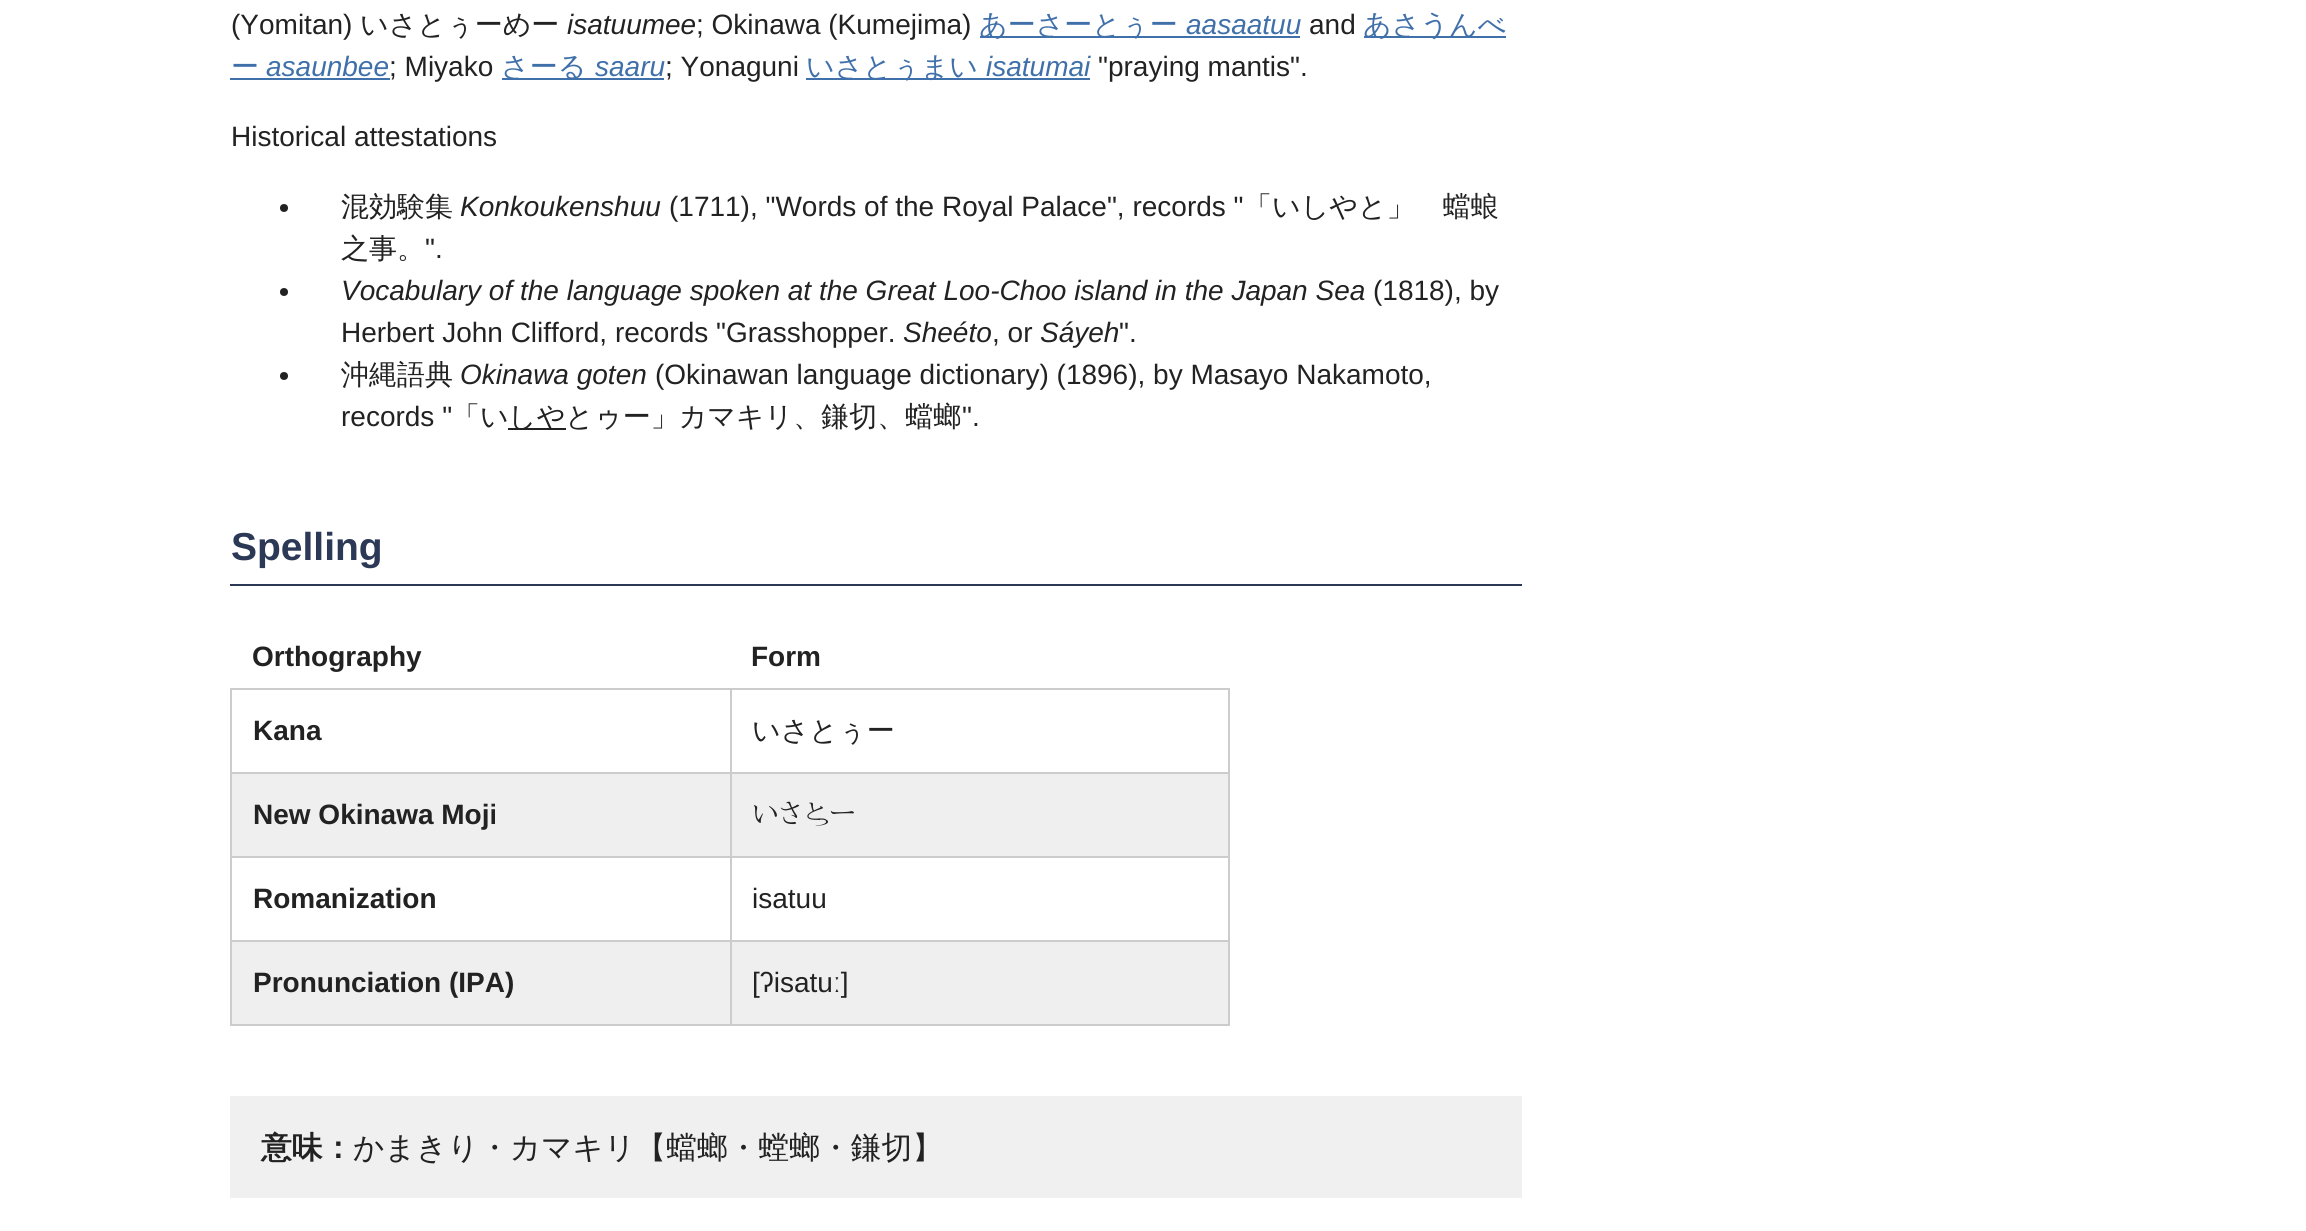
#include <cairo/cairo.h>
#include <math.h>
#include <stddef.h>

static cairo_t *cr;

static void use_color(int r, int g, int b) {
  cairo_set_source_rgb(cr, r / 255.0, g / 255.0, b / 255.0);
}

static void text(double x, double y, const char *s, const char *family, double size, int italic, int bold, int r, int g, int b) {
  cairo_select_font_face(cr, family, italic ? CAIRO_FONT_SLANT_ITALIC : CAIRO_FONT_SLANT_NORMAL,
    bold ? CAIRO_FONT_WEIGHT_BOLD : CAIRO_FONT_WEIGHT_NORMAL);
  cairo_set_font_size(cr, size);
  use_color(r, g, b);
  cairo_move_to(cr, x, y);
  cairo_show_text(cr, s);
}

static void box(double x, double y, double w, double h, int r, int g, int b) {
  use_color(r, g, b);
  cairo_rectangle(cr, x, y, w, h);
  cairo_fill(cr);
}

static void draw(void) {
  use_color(255, 255, 255);
  cairo_paint(cr);
  box(980, 36, 320, 2, 64, 112, 170);
  box(1364, 36, 142, 2, 64, 112, 170);
  box(230, 78, 160, 2, 64, 112, 170);
  box(502, 78, 162, 2, 64, 112, 170);
  box(806, 78, 284, 2, 64, 112, 170);
  use_color(34, 34, 34);
  cairo_arc(cr, 284, 208, 4, 0, 2 * M_PI);
  cairo_fill(cr);
  cairo_arc(cr, 284, 292, 4, 0, 2 * M_PI);
  cairo_fill(cr);
  cairo_arc(cr, 284, 376, 4, 0, 2 * M_PI);
  cairo_fill(cr);
  box(508, 428, 58, 2, 34, 34, 34);
  box(230, 584, 1292, 2, 43, 56, 86);
  box(230, 688, 1000, 2, 204, 204, 204);
  box(230, 772, 1000, 2, 204, 204, 204);
  box(230, 856, 1000, 2, 204, 204, 204);
  box(230, 940, 1000, 2, 204, 204, 204);
  box(1228, 940, 2, 86, 204, 204, 204);
  box(1228, 856, 2, 86, 204, 204, 204);
  box(1228, 772, 2, 86, 204, 204, 204);
  box(1228, 688, 2, 86, 204, 204, 204);
  box(230, 1024, 1000, 2, 204, 204, 204);
  box(230, 940, 2, 86, 204, 204, 204);
  box(230, 856, 2, 86, 204, 204, 204);
  box(230, 772, 2, 86, 204, 204, 204);
  box(230, 688, 2, 86, 204, 204, 204);
  box(232, 774, 498, 82, 239, 239, 239);
  box(732, 774, 496, 82, 239, 239, 239);
  box(232, 942, 498, 82, 239, 239, 239);
  box(732, 942, 496, 82, 239, 239, 239);
  box(730, 688, 2, 338, 204, 204, 204);
  box(230, 1096, 1292, 102, 240, 240, 240);
  text(231, 34, "(Yomitan)", "Liberation Sans", 28, 0, 0, 34, 34, 34);
  text(360, 34, "いさとぅーめー", "WenQuanYi Zen Hei Medium", 28, 0, 0, 34, 34, 34);
  text(567, 34, "isatuumee", "Liberation Sans", 28, 1, 0, 34, 34, 34);
  text(696, 34, "; Okinawa (Kumejima)", "Liberation Sans", 28, 0, 0, 34, 34, 34);
  text(979, 34, "あーさーとぅー", "WenQuanYi Zen Hei Medium", 28, 0, 0, 64, 112, 170);
  text(1186, 34, "aasaatuu", "Liberation Sans", 28, 1, 0, 64, 112, 170);
  text(1309, 34, "and", "Liberation Sans", 28, 0, 0, 34, 34, 34);
  text(1363, 34, "あさうんべ", "WenQuanYi Zen Hei Medium", 28, 0, 0, 64, 112, 170);
  text(231, 76, "ー", "WenQuanYi Zen Hei Medium", 28, 0, 0, 64, 112, 170);
  text(266, 76, "asaunbee", "Liberation Sans", 28, 1, 0, 64, 112, 170);
  text(389, 76, "; Miyako", "Liberation Sans", 28, 0, 0, 34, 34, 34);
  text(501, 76, "さーる", "WenQuanYi Zen Hei Medium", 28, 0, 0, 64, 112, 170);
  text(595, 76, "saaru", "Liberation Sans", 28, 1, 0, 64, 112, 170);
  text(665, 76, "; Yonaguni", "Liberation Sans", 28, 0, 0, 34, 34, 34);
  text(806, 76, "いさとぅまい", "WenQuanYi Zen Hei Medium", 28, 0, 0, 64, 112, 170);
  text(986, 76, "isatumai", "Liberation Sans", 28, 1, 0, 64, 112, 170);
  text(1098, 76, "\"praying mantis\".", "Liberation Sans", 28, 0, 0, 34, 34, 34);
  text(231, 146, "Historical attestations", "Liberation Sans", 28, 0, 0, 34, 34, 34);
  text(341, 216, "混効験集", "WenQuanYi Zen Hei Medium", 28, 0, 0, 34, 34, 34);
  text(460, 216, "Konkoukenshuu", "Liberation Sans", 28, 1, 0, 34, 34, 34);
  text(669, 216, "(1711), \"Words of the Royal Palace\", records \"", "Liberation Sans", 28, 0, 0, 34, 34, 34);
  text(1244, 216, "「いしやと」　蟷蜋", "WenQuanYi Zen Hei Medium", 28, 0, 0, 34, 34, 34);
  text(341, 258, "之事。", "WenQuanYi Zen Hei Medium", 28, 0, 0, 34, 34, 34);
  text(425, 258, "\".", "Liberation Sans", 28, 0, 0, 34, 34, 34);
  text(341, 300, "Vocabulary of the language spoken at the Great Loo-Choo island in the Japan Sea", "Liberation Sans", 28, 1, 0, 34, 34, 34);
  text(1373, 300, "(1818), by", "Liberation Sans", 28, 0, 0, 34, 34, 34);
  text(341, 342, "Herbert John Clifford, records \"Grasshopper.", "Liberation Sans", 28, 0, 0, 34, 34, 34);
  text(903, 342, "Sheéto", "Liberation Sans", 28, 1, 0, 34, 34, 34);
  text(992, 342, ", or", "Liberation Sans", 28, 0, 0, 34, 34, 34);
  text(1040, 342, "Sáyeh", "Liberation Sans", 28, 1, 0, 34, 34, 34);
  text(1119, 342, "\".", "Liberation Sans", 28, 0, 0, 34, 34, 34);
  text(341, 384, "沖縄語典", "WenQuanYi Zen Hei Medium", 28, 0, 0, 34, 34, 34);
  text(460, 384, "Okinawa goten", "Liberation Sans", 28, 1, 0, 34, 34, 34);
  text(655, 384, "(Okinawan language dictionary) (1896), by Masayo Nakamoto,", "Liberation Sans", 28, 0, 0, 34, 34, 34);
  text(341, 426, "records \"", "Liberation Sans", 28, 0, 0, 34, 34, 34);
  text(452, 426, "「い", "WenQuanYi Zen Hei Medium", 28, 0, 0, 34, 34, 34);
  text(508, 426, "しやとゥー」カマキリ、鎌切、蟷螂", "WenQuanYi Zen Hei Medium", 28, 0, 0, 34, 34, 34);
  text(962, 426, "\".", "Liberation Sans", 28, 0, 0, 34, 34, 34);
  text(231, 560, "Spelling", "Liberation Sans", 39, 0, 1, 43, 56, 86);
  text(252, 666, "Orthography", "Liberation Sans", 28, 0, 1, 34, 34, 34);
  text(751, 666, "Form", "Liberation Sans", 28, 0, 1, 34, 34, 34);
  text(253, 740, "Kana", "Liberation Sans", 28, 0, 1, 34, 34, 34);
  text(752, 740, "いさとぅー", "WenQuanYi Zen Hei Medium", 28, 0, 0, 34, 34, 34);
  text(253, 824, "New Okinawa Moji", "Liberation Sans", 28, 0, 1, 34, 34, 34);
  text(752, 824, "いさ婢ー", "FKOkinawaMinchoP", 28, 0, 0, 34, 34, 34);
  text(253, 908, "Romanization", "Liberation Sans", 28, 0, 1, 34, 34, 34);
  text(752, 908, "isatuu", "Liberation Sans", 28, 0, 0, 34, 34, 34);
  text(253, 992, "Pronunciation (IPA)", "Liberation Sans", 28, 0, 1, 34, 34, 34);
  text(752, 992, "[ʔisatuː]", "Liberation Sans", 28, 0, 0, 34, 34, 34);
  text(261, 1158, "意味：", "WenQuanYi Zen Hei", 30.75, 0, 1, 34, 34, 34);
  text(353, 1158, "かまきり・カマキリ【蟷螂・螳螂・鎌切】", "WenQuanYi Zen Hei Medium", 30.75, 0, 0, 34, 34, 34);
}

int main(void) {
  cairo_surface_t *surface = cairo_image_surface_create(CAIRO_FORMAT_RGB24, 2306, 1231);
  cr = cairo_create(surface);
  cairo_font_options_t *options = cairo_font_options_create();
  cairo_font_options_set_hint_metrics(options, CAIRO_HINT_METRICS_OFF);
  cairo_font_options_set_hint_style(options, CAIRO_HINT_STYLE_NONE);
  cairo_set_font_options(cr, options);
  cairo_set_miter_limit(cr, 4);
  draw();
  cairo_surface_write_to_png(surface, "out.png");
  cairo_font_options_destroy(options);
  cairo_destroy(cr);
  cairo_surface_destroy(surface);
  return 0;
}
